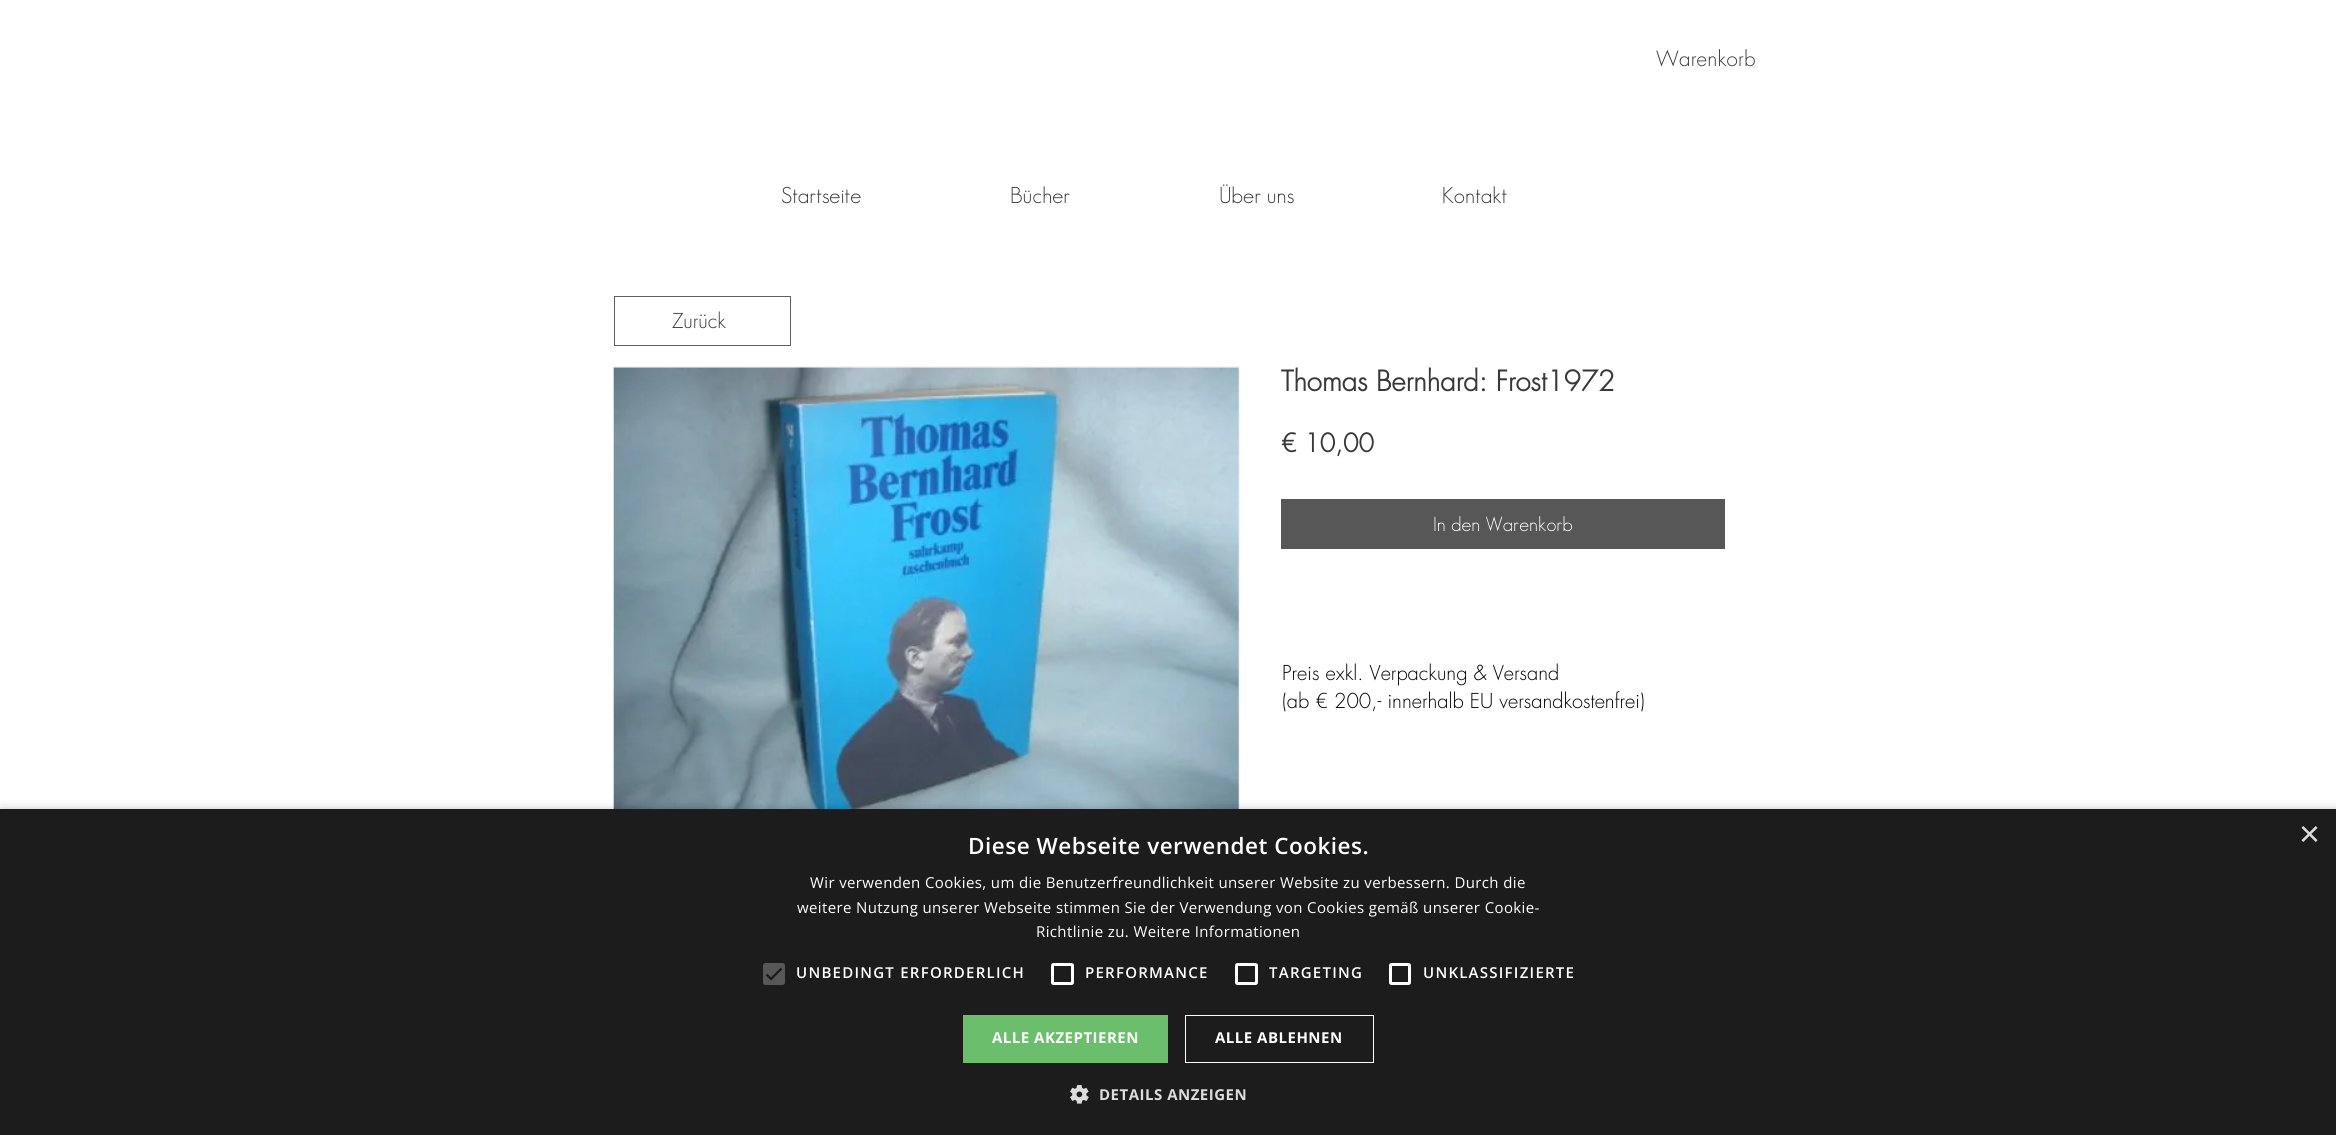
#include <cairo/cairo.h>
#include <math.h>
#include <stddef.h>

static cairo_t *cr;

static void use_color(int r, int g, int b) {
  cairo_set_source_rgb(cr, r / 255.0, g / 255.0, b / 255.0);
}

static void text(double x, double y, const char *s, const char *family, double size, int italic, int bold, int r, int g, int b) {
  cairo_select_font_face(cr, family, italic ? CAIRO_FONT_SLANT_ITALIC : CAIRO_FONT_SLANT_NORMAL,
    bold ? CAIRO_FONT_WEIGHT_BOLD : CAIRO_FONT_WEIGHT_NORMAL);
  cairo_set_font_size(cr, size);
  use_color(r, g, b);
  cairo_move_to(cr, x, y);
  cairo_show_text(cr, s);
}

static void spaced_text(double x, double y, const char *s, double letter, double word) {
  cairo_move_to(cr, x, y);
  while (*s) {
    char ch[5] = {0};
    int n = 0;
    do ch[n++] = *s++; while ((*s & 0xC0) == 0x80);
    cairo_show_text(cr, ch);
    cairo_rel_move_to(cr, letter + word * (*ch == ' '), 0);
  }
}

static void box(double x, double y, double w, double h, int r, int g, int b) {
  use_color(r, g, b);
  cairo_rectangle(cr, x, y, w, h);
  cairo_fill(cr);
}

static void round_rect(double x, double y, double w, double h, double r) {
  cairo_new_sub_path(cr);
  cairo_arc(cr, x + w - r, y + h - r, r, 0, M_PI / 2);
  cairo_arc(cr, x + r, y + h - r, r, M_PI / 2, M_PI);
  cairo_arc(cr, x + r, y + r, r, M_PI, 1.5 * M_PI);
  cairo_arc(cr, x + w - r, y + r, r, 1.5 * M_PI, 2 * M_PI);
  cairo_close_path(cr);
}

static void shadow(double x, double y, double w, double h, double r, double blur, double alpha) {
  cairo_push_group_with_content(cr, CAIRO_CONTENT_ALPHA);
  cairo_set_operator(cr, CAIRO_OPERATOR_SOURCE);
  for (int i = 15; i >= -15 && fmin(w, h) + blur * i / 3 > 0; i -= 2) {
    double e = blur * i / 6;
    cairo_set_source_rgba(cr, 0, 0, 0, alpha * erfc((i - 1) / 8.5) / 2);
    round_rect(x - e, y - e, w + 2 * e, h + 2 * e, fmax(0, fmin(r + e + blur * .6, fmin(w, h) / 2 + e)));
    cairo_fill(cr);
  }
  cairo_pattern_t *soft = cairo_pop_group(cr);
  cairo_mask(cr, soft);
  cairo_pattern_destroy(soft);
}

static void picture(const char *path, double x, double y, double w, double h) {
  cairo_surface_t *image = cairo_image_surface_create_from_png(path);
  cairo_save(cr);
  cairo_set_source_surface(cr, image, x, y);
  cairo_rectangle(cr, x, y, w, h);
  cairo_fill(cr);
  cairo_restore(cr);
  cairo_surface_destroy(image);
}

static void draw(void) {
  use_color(255, 255, 255);
  cairo_paint(cr);
  cairo_rectangle(cr, 614.5, 296.5, 176, 49);
  use_color(96, 94, 94);
  cairo_set_line_width(cr, 1);
  cairo_stroke(cr);
  cairo_rectangle(cr, 613.5, 366.5, 626, 471);
  use_color(245, 245, 245);
  cairo_stroke(cr);
  picture("img_01.png", 613, 367, 626, 442);
  box(1281, 499, 444, 50, 87, 87, 87);
  use_color(0, 0, 0);
  shadow(1, 811, 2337, 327, 0, 5, 0.35);
  box(0, 809, 2336, 326, 28, 28, 28);
  use_color(87, 87, 87);
  round_rect(763, 963, 22, 22, 2.5);
  cairo_fill(cr);
  cairo_new_path(cr);
  cairo_move_to(cr, 766.5, 974.5);
  cairo_line_to(cr, 771, 979);
  cairo_line_to(cr, 781.5, 968.5);
  use_color(28, 28, 28);
  cairo_set_line_width(cr, 2.3);
  cairo_stroke(cr);
  round_rect(1052.5, 964.5, 20, 19, 1);
  use_color(255, 255, 255);
  cairo_set_line_width(cr, 3);
  cairo_stroke(cr);
  round_rect(1236.5, 964.5, 20, 19, 1);
  cairo_stroke(cr);
  round_rect(1390.5, 964.5, 19, 19, 1);
  cairo_stroke(cr);
  box(963, 1015, 205, 48, 107, 190, 107);
  cairo_rectangle(cr, 1185.5, 1015.5, 188, 47);
  use_color(255, 255, 255);
  cairo_set_line_width(cr, 1);
  cairo_stroke(cr);
  picture("img_02.png", 1070, 1085, 19, 19);
  cairo_select_font_face(cr, "futura Light", CAIRO_FONT_SLANT_NORMAL, CAIRO_FONT_WEIGHT_NORMAL);
  cairo_set_font_size(cr, 20.5);
  use_color(56, 56, 56);
  spaced_text(1656, 66, "Warenkorb", 0.25, 0);
  text(781, 203, "Startseite", "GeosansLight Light", 22.5, 0, 0, 56, 56, 56);
  text(1010, 203, "Bücher", "GeosansLight Light", 22.5, 0, 0, 56, 56, 56);
  text(1219, 203, "Über uns", "GeosansLight Light", 22.5, 0, 0, 56, 56, 56);
  text(1442, 203, "Kontakt", "GeosansLight Light", 22.5, 0, 0, 56, 56, 56);
  text(672, 328, "Zurück", "futura Light", 20, 0, 0, 56, 56, 56);
  text(1281, 391, "Thomas Bernhard: Frost1972", "futura", 27.5, 0, 1, 56, 56, 56);
  text(1281, 452, "€ 10,00", "futura", 25, 0, 1, 56, 56, 56);
  text(1433, 531, "In den Warenkorb", "GeosansLight Light", 20, 0, 0, 255, 255, 255);
  text(1282, 680, "Preis exkl. Verpackung & Versand", "futura Light", 20, 0, 0, 0, 0, 0);
  text(1282, 708, "(ab € 200,- innerhalb EU versandkostenfrei)", "futura Light", 20, 0, 0, 0, 0, 0);
  text(2299, 846, "×", "Liberation Sans", 36, 0, 0, 221, 221, 221);
  cairo_select_font_face(cr, "Open Sans SemiBold", CAIRO_FONT_SLANT_NORMAL, CAIRO_FONT_WEIGHT_NORMAL);
  cairo_set_font_size(cr, 22.5);
  use_color(255, 255, 255);
  spaced_text(968, 854, "Diese Webseite verwendet Cookies.", 0.5, 0);
  cairo_select_font_face(cr, "Open Sans", CAIRO_FONT_SLANT_NORMAL, CAIRO_FONT_WEIGHT_NORMAL);
  cairo_set_font_size(cr, 15);
  spaced_text(810, 888, "Wir verwenden Cookies, um die Benutzerfreundlichkeit unserer Website zu verbessern. Durch die", 0.38, 0);
  spaced_text(797, 913, "weitere Nutzung unserer Webseite stimmen Sie der Verwendung von Cookies gemäß unserer Cookie-", 0.38, 0);
  spaced_text(1036, 937, "Richtlinie zu. Weitere Informationen", 0.38, 0);
  cairo_select_font_face(cr, "Open Sans SemiBold", CAIRO_FONT_SLANT_NORMAL, CAIRO_FONT_WEIGHT_NORMAL);
  spaced_text(796, 978, "UNBEDINGT ERFORDERLICH", 1.25, 0);
  spaced_text(1085, 978, "PERFORMANCE", 1.25, 0);
  spaced_text(1269, 978, "TARGETING", 1.25, 0);
  spaced_text(1423, 978, "UNKLASSIFIZIERTE", 1.25, 0);
  cairo_select_font_face(cr, "Open Sans", CAIRO_FONT_SLANT_NORMAL, CAIRO_FONT_WEIGHT_BOLD);
  spaced_text(992, 1043, "ALLE AKZEPTIEREN", 0.5, 0);
  spaced_text(1215, 1043, "ALLE ABLEHNEN", 0.5, 0);
  use_color(221, 221, 221);
  spaced_text(1099, 1100, "DETAILS ANZEIGEN", 0.5, 0);
}

int main(void) {
  cairo_surface_t *surface = cairo_image_surface_create(CAIRO_FORMAT_RGB24, 2336, 1135);
  cr = cairo_create(surface);
  cairo_font_options_t *options = cairo_font_options_create();
  cairo_font_options_set_hint_metrics(options, CAIRO_HINT_METRICS_OFF);
  cairo_font_options_set_hint_style(options, CAIRO_HINT_STYLE_NONE);
  cairo_set_font_options(cr, options);
  cairo_set_miter_limit(cr, 4);
  draw();
  cairo_surface_write_to_png(surface, "out.png");
  cairo_font_options_destroy(options);
  cairo_destroy(cr);
  cairo_surface_destroy(surface);
  return 0;
}
